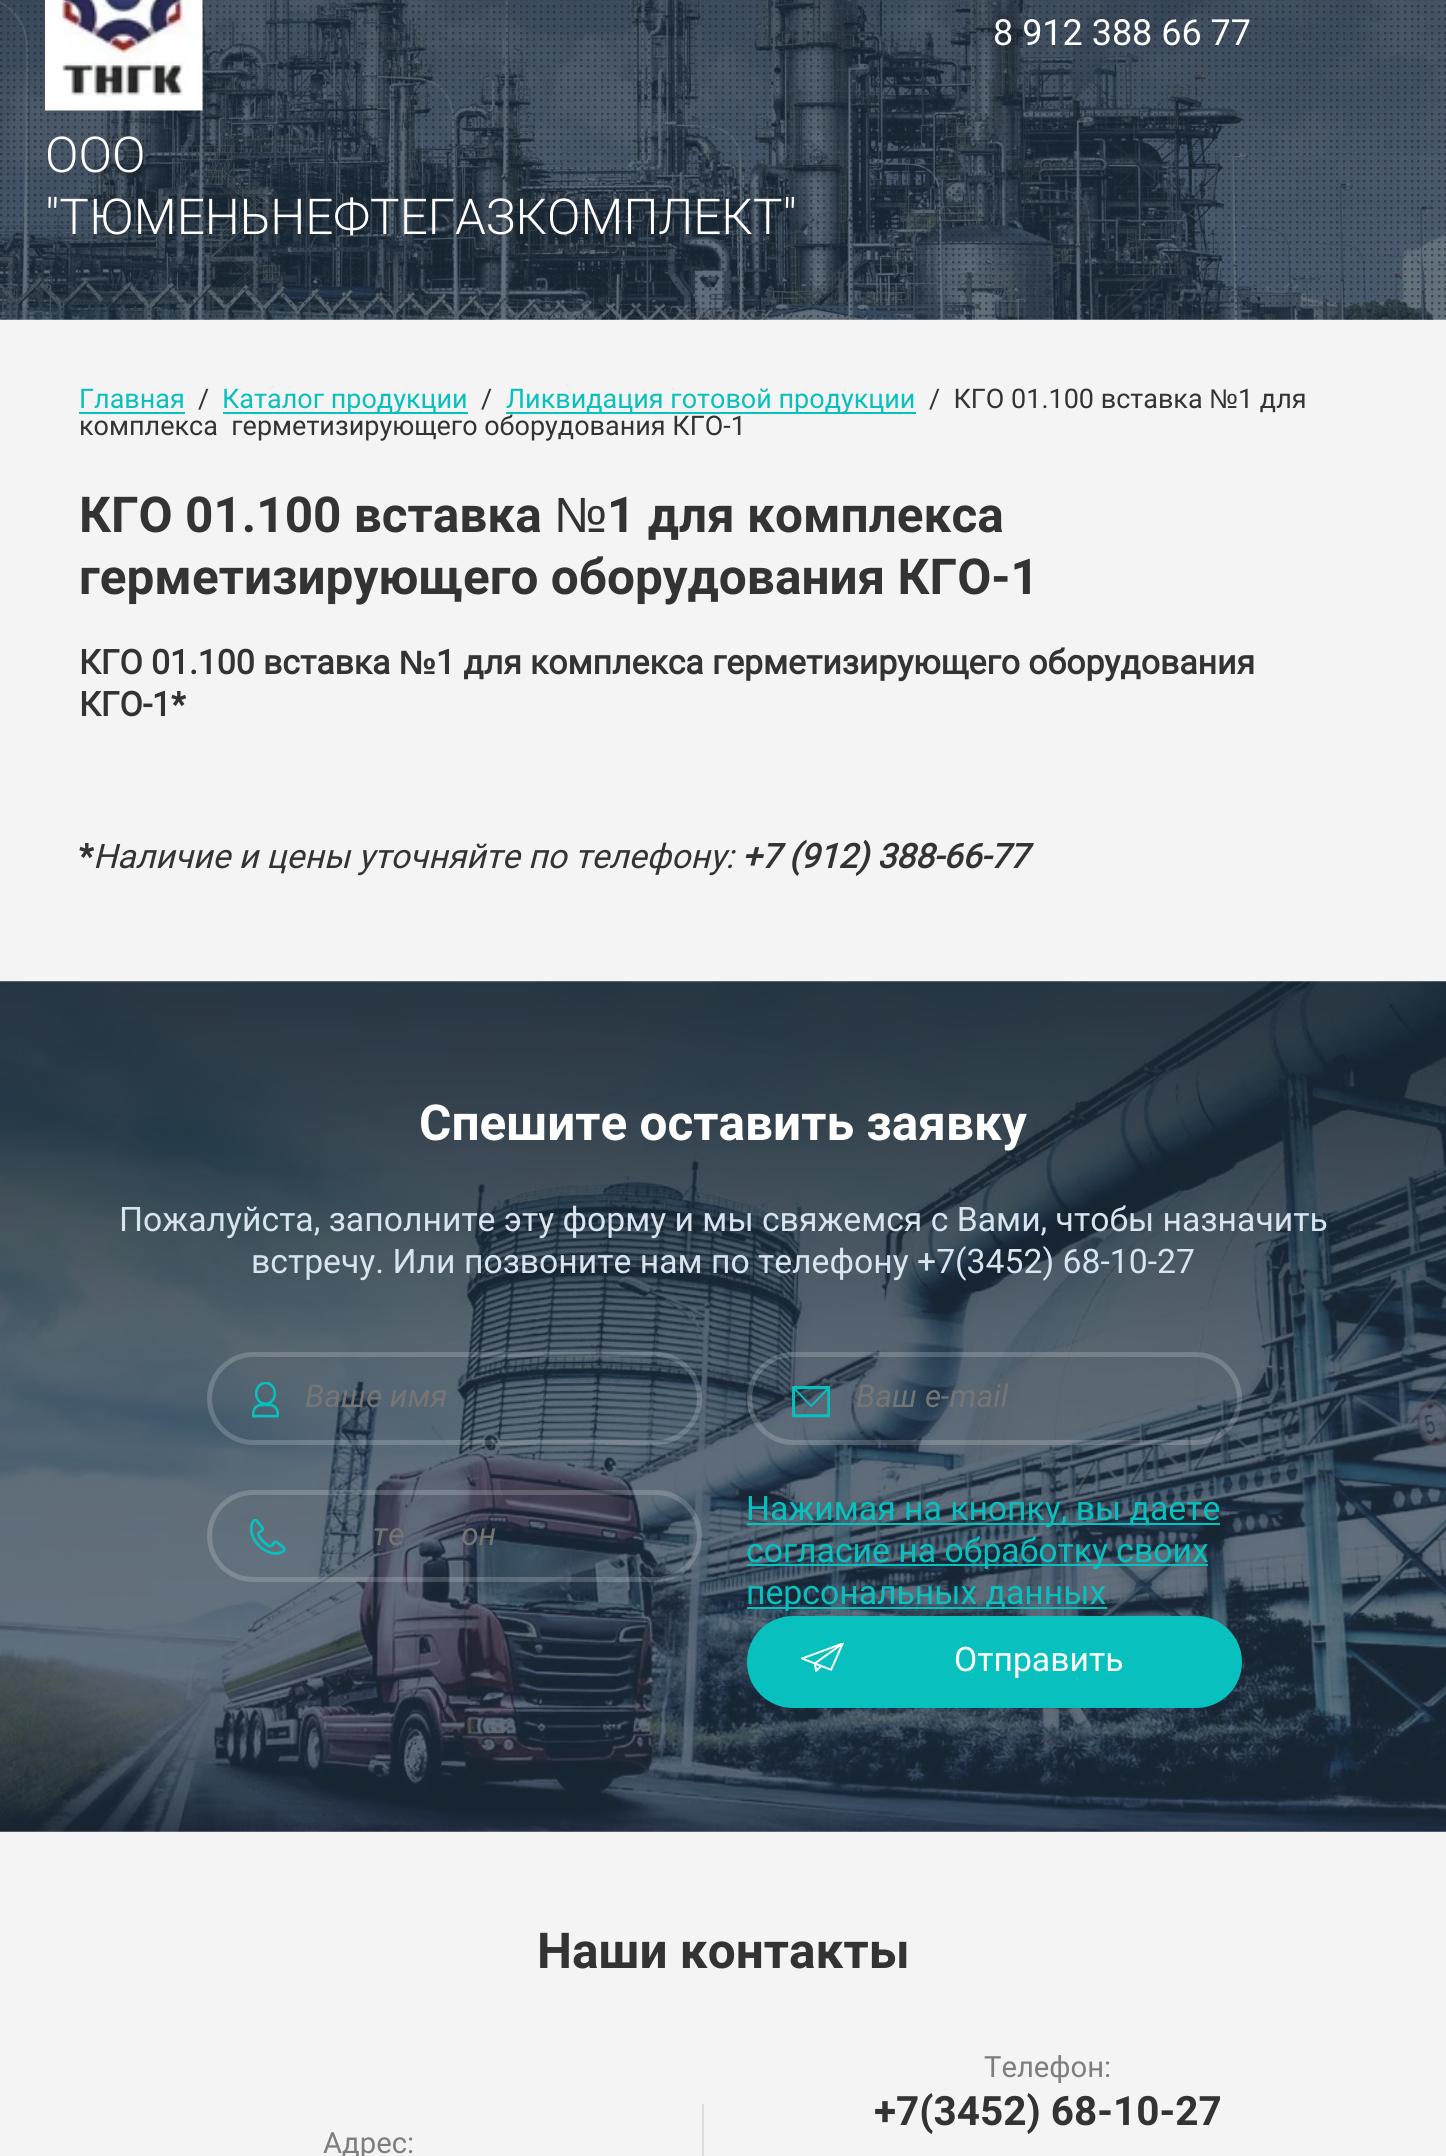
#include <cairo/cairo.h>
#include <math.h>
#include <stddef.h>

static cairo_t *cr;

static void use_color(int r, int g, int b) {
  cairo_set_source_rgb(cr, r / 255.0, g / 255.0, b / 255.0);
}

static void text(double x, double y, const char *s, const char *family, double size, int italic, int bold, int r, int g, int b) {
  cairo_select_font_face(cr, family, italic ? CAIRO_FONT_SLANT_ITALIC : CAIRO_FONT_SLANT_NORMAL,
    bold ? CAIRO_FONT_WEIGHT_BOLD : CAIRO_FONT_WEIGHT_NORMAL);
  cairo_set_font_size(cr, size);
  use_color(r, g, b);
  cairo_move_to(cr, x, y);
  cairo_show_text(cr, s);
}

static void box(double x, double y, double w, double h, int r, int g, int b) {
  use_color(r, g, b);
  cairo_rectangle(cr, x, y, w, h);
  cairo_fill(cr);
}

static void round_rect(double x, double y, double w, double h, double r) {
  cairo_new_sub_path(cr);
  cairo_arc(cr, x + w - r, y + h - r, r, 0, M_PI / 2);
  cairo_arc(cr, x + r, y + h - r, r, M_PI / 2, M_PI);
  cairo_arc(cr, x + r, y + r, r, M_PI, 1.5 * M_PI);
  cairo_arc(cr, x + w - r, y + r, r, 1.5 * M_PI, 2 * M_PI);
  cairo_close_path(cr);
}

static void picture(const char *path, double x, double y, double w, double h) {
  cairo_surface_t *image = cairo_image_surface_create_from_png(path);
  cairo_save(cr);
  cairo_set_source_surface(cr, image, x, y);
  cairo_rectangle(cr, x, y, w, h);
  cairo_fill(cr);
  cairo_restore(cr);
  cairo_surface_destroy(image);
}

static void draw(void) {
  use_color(245, 244, 244);
  cairo_paint(cr);
  picture("img_01.png", 0, 0, 1446, 320);
  picture("img_02.png", 0, 0, 1446, 318);
  picture("img_03.png", 45, 0, 158, 111);
  box(79, 412, 106, 2, 8, 193, 191);
  box(223, 412, 245, 2, 8, 193, 191);
  box(506, 412, 410, 2, 8, 193, 191);
  picture("img_04.png", 0, 981, 1446, 851);
  picture("img_05.png", 252, 1382, 27, 36);
  round_rect(209.5, 1354.5, 490, 88, 44);
  cairo_set_source_rgba(cr, 1, 1, 1, 0.18);
  cairo_set_line_width(cr, 5);
  cairo_stroke(cr);
  picture("img_06.png", 792, 1386, 38, 32);
  round_rect(749.5, 1354.5, 490, 88, 44);
  cairo_stroke(cr);
  picture("img_07.png", 250, 1519, 36, 36);
  round_rect(209.5, 1492.5, 490, 87, 43.5);
  cairo_stroke(cr);
  box(747, 1523, 473, 2, 8, 193, 191);
  box(747, 1564, 461, 2, 8, 193, 191);
  box(747, 1607, 360, 2, 8, 193, 191);
  round_rect(747, 1616, 495, 92, 46);
  cairo_fill(cr);
  picture("img_08.png", 801, 1643, 43, 29);
  box(702, 2104, 2, 52, 221, 220, 220);
  text(993, 45, "8 912 388 66 77", "Roboto", 36, 0, 0, 255, 255, 255);
  text(45, 172, "ООО", "Roboto Light", 49.5, 0, 0, 255, 255, 255);
  text(45, 234, "\"ТЮМЕНЬНЕФТЕГАЗКОМПЛЕКТ\"", "Roboto Light", 49.5, 0, 0, 255, 255, 255);
  text(79, 408, "Главная", "Roboto", 27, 0, 0, 8, 193, 191);
  text(198, 408, "/", "Roboto", 27, 0, 0, 51, 51, 51);
  text(222, 408, "Каталог продукции", "Roboto", 27, 0, 0, 8, 193, 191);
  text(481, 408, "/", "Roboto", 27, 0, 0, 51, 51, 51);
  text(506, 408, "Ликвидация готовой продукции", "Roboto", 27, 0, 0, 8, 193, 191);
  text(929, 408, "/  КГО 01.100 вставка", "Roboto", 27, 0, 0, 51, 51, 51);
  text(1209, 408, "№", "Liberation Sans", 27, 0, 0, 51, 51, 51);
  text(1238, 408, "1 для", "Roboto", 27, 0, 0, 51, 51, 51);
  text(79, 435, "комплекса  герметизирующего оборудования КГО-1", "Roboto", 27, 0, 0, 51, 51, 51);
  text(79, 532, "КГО 01.100 вставка", "Roboto", 49.5, 0, 1, 51, 51, 51);
  text(554, 532, "№", "Liberation Sans", 49.5, 0, 0, 51, 51, 51);
  text(607, 532, "1 для комплекса", "Roboto", 49.5, 0, 1, 51, 51, 51);
  text(79, 594, "герметизирующего оборудования КГО-1", "Roboto", 49.5, 0, 1, 51, 51, 51);
  text(79, 674, "КГО 01.100 вставка", "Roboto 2", 33.75, 0, 1, 51, 51, 51);
  text(399, 674, "№", "Liberation Sans", 33.75, 0, 1, 51, 51, 51);
  text(436, 674, "1 для комплекса герметизирующего оборудования", "Roboto 2", 33.75, 0, 1, 51, 51, 51);
  text(79, 716, "КГО-1*", "Roboto 2", 33.75, 0, 1, 51, 51, 51);
  text(79, 868, "*", "Roboto 2", 33.75, 0, 1, 51, 51, 51);
  text(93, 868, "Наличие и цены уточняйте по телефону:", "Roboto", 33.75, 1, 0, 51, 51, 51);
  text(742, 868, "+7 (912) 388-66-77", "Roboto", 33.75, 1, 1, 51, 51, 51);
  text(419, 1140, "Спешите оставить заявку", "Roboto", 49.5, 0, 1, 255, 255, 255);
  text(119, 1231, "Пожалуйста, заполните эту форму и мы свяжемся с Вами, чтобы назначить", "Roboto", 33.75, 0, 0, 217, 228, 238);
  text(251, 1273, "встречу. Или позвоните нам по телефону +7(3452) 68-10-27", "Roboto", 33.75, 0, 0, 217, 228, 238);
  text(305, 1407, "Ваше имя", "Roboto 2", 31.5, 1, 0, 117, 117, 117);
  text(856, 1407, "Ваш e-mail", "Roboto 2", 31.5, 1, 0, 117, 117, 117);
  text(373, 1545, "те", "Roboto 2", 31.5, 1, 0, 117, 117, 117);
  text(461, 1545, "он", "Roboto 2", 31.5, 1, 0, 117, 117, 117);
  text(746, 1520, "Нажимая на кнопку, вы даете", "Roboto", 33.75, 0, 0, 8, 193, 191);
  text(746, 1562, "согласие на обработку своих", "Roboto", 33.75, 0, 0, 8, 193, 191);
  text(746, 1604, "персональных данных", "Roboto", 33.75, 0, 0, 8, 193, 191);
  text(954, 1671, "Отправить", "Roboto", 33.75, 0, 0, 255, 255, 255);
  text(537, 1968, "Наши контакты", "Roboto", 49.5, 0, 1, 51, 51, 51);
  text(984, 2077, "Телефон:", "Roboto", 29.25, 0, 0, 126, 126, 127);
  text(874, 2125, "+7(3452) 68-10-27", "Roboto", 40.5, 0, 1, 51, 51, 51);
  text(323, 2153, "Адрес:", "Roboto", 29.25, 0, 0, 126, 126, 127);
}

int main(void) {
  cairo_surface_t *surface = cairo_image_surface_create(CAIRO_FORMAT_RGB24, 1446, 2156);
  cr = cairo_create(surface);
  cairo_font_options_t *options = cairo_font_options_create();
  cairo_font_options_set_hint_metrics(options, CAIRO_HINT_METRICS_OFF);
  cairo_font_options_set_hint_style(options, CAIRO_HINT_STYLE_NONE);
  cairo_set_font_options(cr, options);
  cairo_set_miter_limit(cr, 4);
  draw();
  cairo_surface_write_to_png(surface, "out.png");
  cairo_font_options_destroy(options);
  cairo_destroy(cr);
  cairo_surface_destroy(surface);
  return 0;
}
